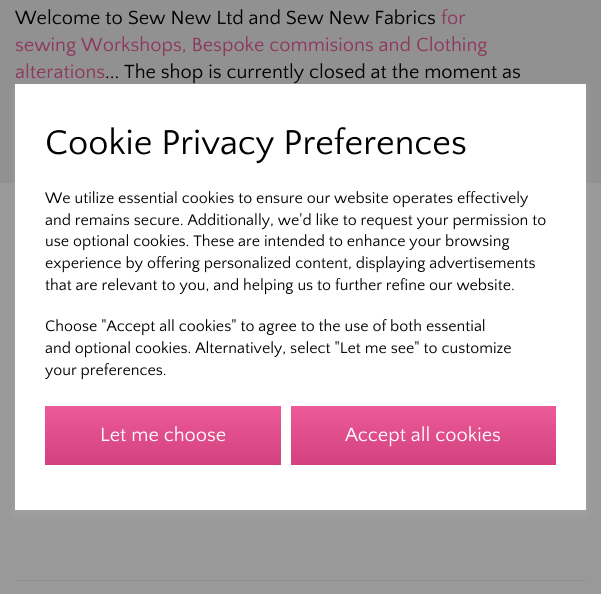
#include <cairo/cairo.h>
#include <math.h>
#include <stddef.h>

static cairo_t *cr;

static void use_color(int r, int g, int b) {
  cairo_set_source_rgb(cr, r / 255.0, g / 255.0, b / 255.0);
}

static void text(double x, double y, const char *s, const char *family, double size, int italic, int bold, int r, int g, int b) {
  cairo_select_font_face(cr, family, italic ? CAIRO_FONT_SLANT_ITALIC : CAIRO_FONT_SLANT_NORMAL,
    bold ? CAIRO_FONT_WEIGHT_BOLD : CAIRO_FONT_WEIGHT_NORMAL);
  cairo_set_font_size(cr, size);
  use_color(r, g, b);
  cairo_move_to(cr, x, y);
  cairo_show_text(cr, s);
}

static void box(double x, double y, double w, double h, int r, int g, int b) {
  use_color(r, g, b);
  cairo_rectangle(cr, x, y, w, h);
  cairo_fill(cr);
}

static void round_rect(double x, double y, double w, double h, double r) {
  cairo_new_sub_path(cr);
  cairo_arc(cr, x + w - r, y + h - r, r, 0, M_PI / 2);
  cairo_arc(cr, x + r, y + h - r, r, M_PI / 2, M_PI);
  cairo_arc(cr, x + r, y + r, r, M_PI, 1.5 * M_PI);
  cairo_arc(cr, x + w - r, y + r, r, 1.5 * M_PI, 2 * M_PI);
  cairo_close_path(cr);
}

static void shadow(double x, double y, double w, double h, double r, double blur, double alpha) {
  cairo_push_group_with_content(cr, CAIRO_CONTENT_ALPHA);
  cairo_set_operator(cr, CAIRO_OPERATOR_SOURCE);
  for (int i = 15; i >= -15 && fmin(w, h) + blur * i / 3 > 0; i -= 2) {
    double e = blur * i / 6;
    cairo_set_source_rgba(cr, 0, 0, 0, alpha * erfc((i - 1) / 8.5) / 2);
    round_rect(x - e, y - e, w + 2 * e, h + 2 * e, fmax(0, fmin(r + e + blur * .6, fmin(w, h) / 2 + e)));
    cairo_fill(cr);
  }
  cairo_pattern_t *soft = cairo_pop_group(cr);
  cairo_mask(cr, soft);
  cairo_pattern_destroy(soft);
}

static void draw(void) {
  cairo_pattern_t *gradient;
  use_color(153, 153, 153);
  cairo_paint(cr);
  box(0, 0, 601, 183, 145, 145, 145);
  use_color(255, 255, 255);
  shadow(15, 88, 571, 426, 0, 4, 0.1);
  box(15, 84, 571, 426, 255, 255, 255);
  gradient = cairo_pattern_create_linear(163, 406, 163, 465);
  cairo_pattern_add_color_stop_rgba(gradient, 0, 0.925, 0.353, 0.596, 1);
  cairo_pattern_add_color_stop_rgba(gradient, 1, 0.827, 0.255, 0.498, 1);
  cairo_set_source(cr, gradient);
  cairo_pattern_destroy(gradient);
  cairo_rectangle(cr, 45, 406, 236, 59);
  cairo_fill(cr);
  gradient = cairo_pattern_create_linear(424, 406, 424, 465);
  cairo_pattern_add_color_stop_rgba(gradient, 0, 0.925, 0.353, 0.596, 1);
  cairo_pattern_add_color_stop_rgba(gradient, 1, 0.827, 0.255, 0.498, 1);
  cairo_set_source(cr, gradient);
  cairo_pattern_destroy(gradient);
  cairo_rectangle(cr, 291, 406, 265, 59);
  cairo_fill(cr);
  box(15, 580, 571, 1, 143, 143, 143);
  text(15, 24, "Welcome to Sew New Ltd and Sew New Fabrics", "Quattrocento Sans", 20, 0, 0, 0, 0, 0);
  text(441, 24, "for", "Quattrocento Sans", 20, 0, 0, 142, 54, 91);
  text(15, 51, "sewing Workshops, Bespoke commisions and Clothing", "Quattrocento Sans", 20, 0, 0, 142, 54, 91);
  text(15, 78, "alterations", "Quattrocento Sans", 20, 0, 0, 142, 54, 91);
  text(105, 78, "... The shop is currently closed at the moment as", "Quattrocento Sans", 20, 0, 0, 0, 0, 0);
  text(45, 154, "Cookie Privacy Preferences", "Quattrocento Sans", 36, 0, 0, 0, 0, 0);
  text(45, 203, "We utilize essential cookies to ensure our website operates effectively", "Quattrocento Sans", 16, 0, 0, 0, 0, 0);
  text(45, 225, "and remains secure. Additionally, we'd like to request your permission to", "Quattrocento Sans", 16, 0, 0, 0, 0, 0);
  text(45, 246, "use optional cookies. These are intended to enhance your browsing", "Quattrocento Sans", 16, 0, 0, 0, 0, 0);
  text(45, 268, "experience by offering personalized content, displaying advertisements", "Quattrocento Sans", 16, 0, 0, 0, 0, 0);
  text(45, 290, "that are relevant to you, and helping us to further refine our website.", "Quattrocento Sans", 16, 0, 0, 0, 0, 0);
  text(45, 331, "Choose \"Accept all cookies\" to agree to the use of both essential", "Quattrocento Sans", 16, 0, 0, 0, 0, 0);
  text(45, 353, "and optional cookies. Alternatively, select \"Let me see\" to customize", "Quattrocento Sans", 16, 0, 0, 0, 0, 0);
  text(45, 375, "your preferences.", "Quattrocento Sans", 16, 0, 0, 0, 0, 0);
  text(100, 441, "Let me choose", "Quattrocento Sans", 20, 0, 0, 255, 255, 255);
  text(345, 441, "Accept all cookies", "Quattrocento Sans", 20, 0, 0, 255, 255, 255);
}

int main(void) {
  cairo_surface_t *surface = cairo_image_surface_create(CAIRO_FORMAT_RGB24, 601, 594);
  cr = cairo_create(surface);
  cairo_font_options_t *options = cairo_font_options_create();
  cairo_font_options_set_hint_metrics(options, CAIRO_HINT_METRICS_OFF);
  cairo_font_options_set_hint_style(options, CAIRO_HINT_STYLE_NONE);
  cairo_set_font_options(cr, options);
  cairo_set_miter_limit(cr, 4);
  draw();
  cairo_surface_write_to_png(surface, "out.png");
  cairo_font_options_destroy(options);
  cairo_destroy(cr);
  cairo_surface_destroy(surface);
  return 0;
}
